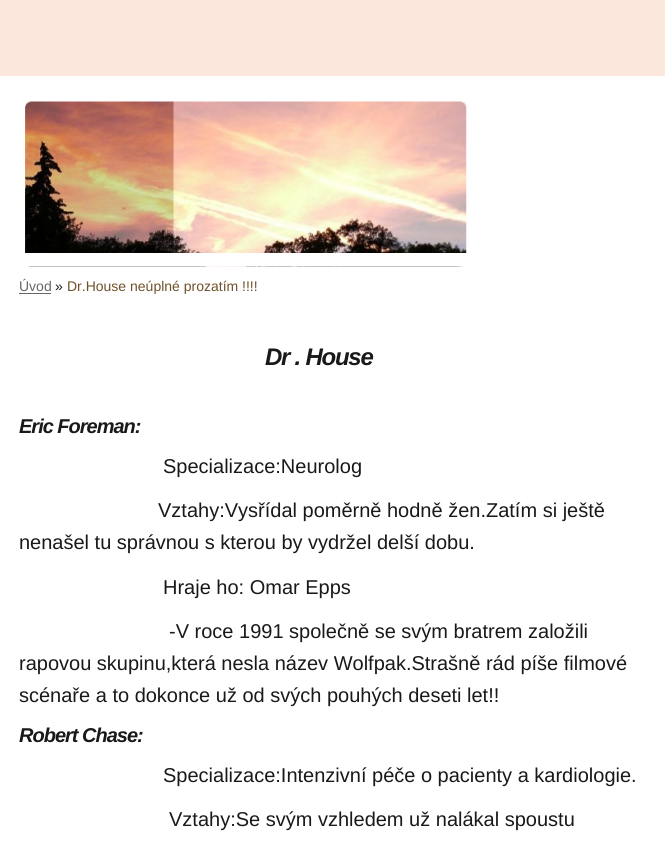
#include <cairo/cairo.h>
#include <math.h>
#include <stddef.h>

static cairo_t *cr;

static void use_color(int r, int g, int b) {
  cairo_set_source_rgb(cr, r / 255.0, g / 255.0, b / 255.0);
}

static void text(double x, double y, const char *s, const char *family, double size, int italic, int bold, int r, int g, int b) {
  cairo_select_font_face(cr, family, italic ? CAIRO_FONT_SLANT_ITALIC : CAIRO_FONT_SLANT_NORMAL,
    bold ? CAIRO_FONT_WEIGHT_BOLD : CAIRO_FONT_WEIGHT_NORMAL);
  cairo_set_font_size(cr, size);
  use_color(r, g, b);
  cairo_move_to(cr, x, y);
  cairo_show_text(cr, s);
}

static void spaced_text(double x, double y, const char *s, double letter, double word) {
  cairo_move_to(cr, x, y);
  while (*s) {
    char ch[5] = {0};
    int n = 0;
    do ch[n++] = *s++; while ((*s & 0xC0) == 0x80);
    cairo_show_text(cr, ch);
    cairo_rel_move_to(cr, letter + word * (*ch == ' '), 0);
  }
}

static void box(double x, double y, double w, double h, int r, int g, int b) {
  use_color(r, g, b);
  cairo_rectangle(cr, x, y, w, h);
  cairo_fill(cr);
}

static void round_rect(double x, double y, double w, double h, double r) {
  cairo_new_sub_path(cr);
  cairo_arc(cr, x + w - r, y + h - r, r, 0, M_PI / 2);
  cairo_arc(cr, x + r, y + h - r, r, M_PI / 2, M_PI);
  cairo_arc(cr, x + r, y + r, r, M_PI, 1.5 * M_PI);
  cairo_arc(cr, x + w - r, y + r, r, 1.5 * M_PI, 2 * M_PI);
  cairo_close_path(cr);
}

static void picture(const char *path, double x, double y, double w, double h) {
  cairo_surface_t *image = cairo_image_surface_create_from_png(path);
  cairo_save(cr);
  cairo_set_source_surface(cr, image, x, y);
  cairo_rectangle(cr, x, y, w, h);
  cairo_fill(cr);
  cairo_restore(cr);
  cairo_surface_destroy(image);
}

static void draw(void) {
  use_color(252, 231, 220);
  cairo_paint(cr);
  box(0, 76, 665, 775, 255, 255, 255);
  picture("img_01.png", 25, 101, 442, 166);
  round_rect(6.5, 82.5, 652, 177, 18.5);
  cairo_set_line_width(cr, 13);
  cairo_stroke(cr);
  box(19, 293, 32, 1, 102, 102, 102);
  text(19, 291, "Úvod", "Liberation Sans", 14, 0, 0, 102, 102, 102);
  text(55, 291, "»", "Liberation Sans", 14, 0, 0, 25, 25, 25);
  text(67, 291, "Dr.House neúplné prozatím !!!!", "Liberation Sans", 14, 0, 0, 112, 80, 43);
  cairo_select_font_face(cr, "Liberation Sans", CAIRO_FONT_SLANT_ITALIC, CAIRO_FONT_WEIGHT_BOLD);
  cairo_set_font_size(cr, 24);
  use_color(25, 25, 25);
  spaced_text(265, 365, "Dr . House", -1.25, 0);
  cairo_set_font_size(cr, 20);
  spaced_text(19, 433, "Eric Foreman:", -1, 0);
  text(163, 473, "Specializace:Neurolog", "Liberation Sans", 20, 0, 0, 25, 25, 25);
  text(158, 517, "Vztahy:Vysřídal poměrně hodně žen.Zatím si ještě", "Liberation Sans", 20, 0, 0, 25, 25, 25);
  text(19, 549, "nenašel tu správnou s kterou by vydržel delší dobu.", "Liberation Sans", 20, 0, 0, 25, 25, 25);
  text(163, 594, "Hraje ho: Omar Epps", "Liberation Sans", 20, 0, 0, 25, 25, 25);
  text(169, 638, "-V roce 1991 společně se svým bratrem založili", "Liberation Sans", 20, 0, 0, 25, 25, 25);
  text(19, 670, "rapovou skupinu,která nesla název Wolfpak.Strašně rád píše filmové", "Liberation Sans", 20, 0, 0, 25, 25, 25);
  text(19, 702, "scénaře a to dokonce už od svých pouhých deseti let!!", "Liberation Sans", 20, 0, 0, 25, 25, 25);
  cairo_select_font_face(cr, "Liberation Sans", CAIRO_FONT_SLANT_ITALIC, CAIRO_FONT_WEIGHT_BOLD);
  spaced_text(19, 742, "Robert Chase:", -1, 0);
  text(163, 782, "Specializace:Intenzivní péče o pacienty a kardiologie.", "Liberation Sans", 20, 0, 0, 25, 25, 25);
  text(169, 826, "Vztahy:Se svým vzhledem už nalákal spoustu", "Liberation Sans", 20, 0, 0, 25, 25, 25);
}

int main(void) {
  cairo_surface_t *surface = cairo_image_surface_create(CAIRO_FORMAT_RGB24, 665, 851);
  cr = cairo_create(surface);
  cairo_font_options_t *options = cairo_font_options_create();
  cairo_font_options_set_hint_metrics(options, CAIRO_HINT_METRICS_OFF);
  cairo_font_options_set_hint_style(options, CAIRO_HINT_STYLE_NONE);
  cairo_set_font_options(cr, options);
  cairo_set_miter_limit(cr, 4);
  draw();
  cairo_surface_write_to_png(surface, "out.png");
  cairo_font_options_destroy(options);
  cairo_destroy(cr);
  cairo_surface_destroy(surface);
  return 0;
}
